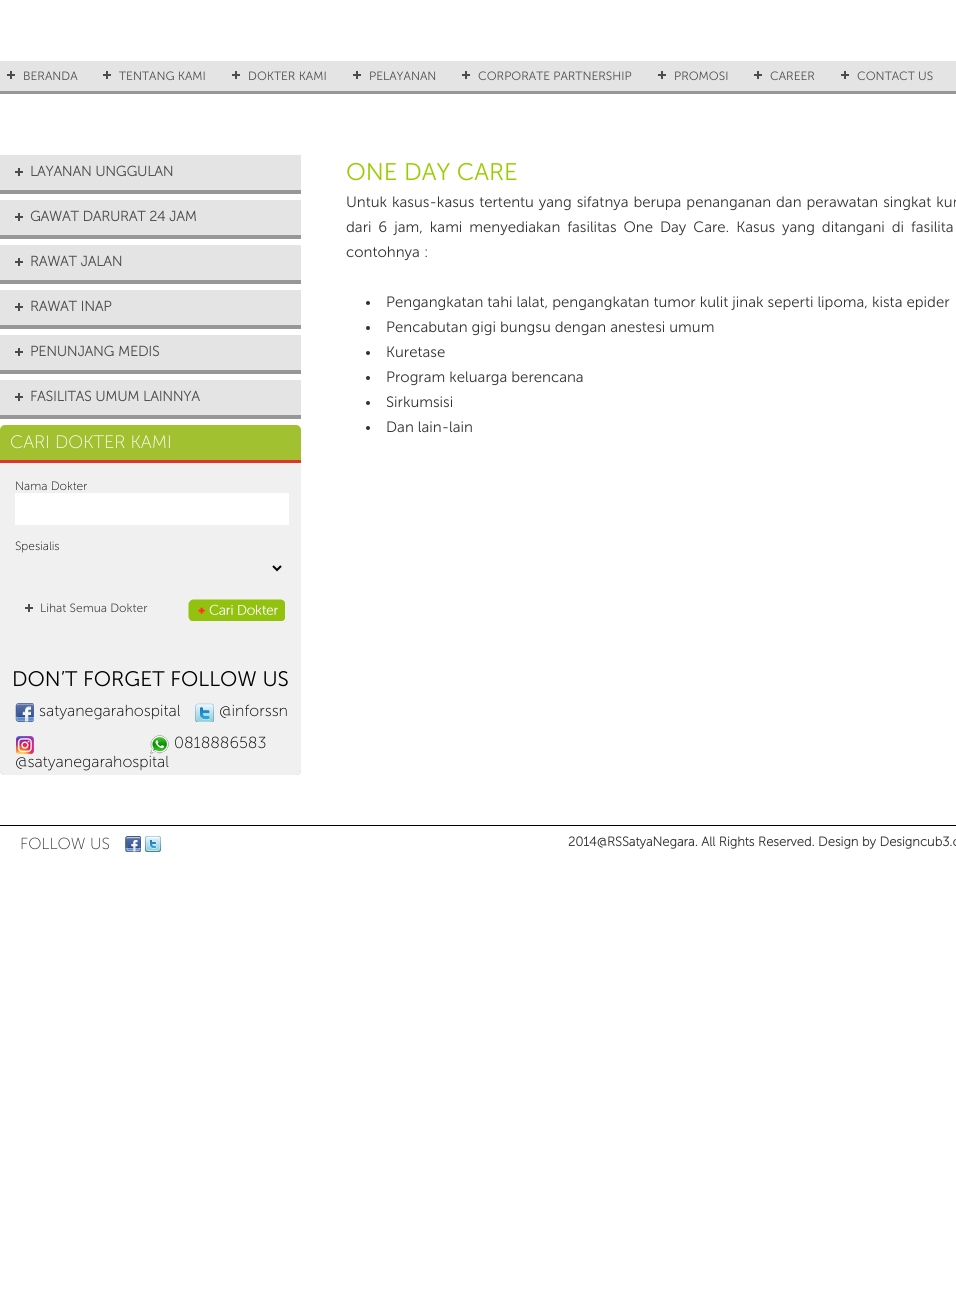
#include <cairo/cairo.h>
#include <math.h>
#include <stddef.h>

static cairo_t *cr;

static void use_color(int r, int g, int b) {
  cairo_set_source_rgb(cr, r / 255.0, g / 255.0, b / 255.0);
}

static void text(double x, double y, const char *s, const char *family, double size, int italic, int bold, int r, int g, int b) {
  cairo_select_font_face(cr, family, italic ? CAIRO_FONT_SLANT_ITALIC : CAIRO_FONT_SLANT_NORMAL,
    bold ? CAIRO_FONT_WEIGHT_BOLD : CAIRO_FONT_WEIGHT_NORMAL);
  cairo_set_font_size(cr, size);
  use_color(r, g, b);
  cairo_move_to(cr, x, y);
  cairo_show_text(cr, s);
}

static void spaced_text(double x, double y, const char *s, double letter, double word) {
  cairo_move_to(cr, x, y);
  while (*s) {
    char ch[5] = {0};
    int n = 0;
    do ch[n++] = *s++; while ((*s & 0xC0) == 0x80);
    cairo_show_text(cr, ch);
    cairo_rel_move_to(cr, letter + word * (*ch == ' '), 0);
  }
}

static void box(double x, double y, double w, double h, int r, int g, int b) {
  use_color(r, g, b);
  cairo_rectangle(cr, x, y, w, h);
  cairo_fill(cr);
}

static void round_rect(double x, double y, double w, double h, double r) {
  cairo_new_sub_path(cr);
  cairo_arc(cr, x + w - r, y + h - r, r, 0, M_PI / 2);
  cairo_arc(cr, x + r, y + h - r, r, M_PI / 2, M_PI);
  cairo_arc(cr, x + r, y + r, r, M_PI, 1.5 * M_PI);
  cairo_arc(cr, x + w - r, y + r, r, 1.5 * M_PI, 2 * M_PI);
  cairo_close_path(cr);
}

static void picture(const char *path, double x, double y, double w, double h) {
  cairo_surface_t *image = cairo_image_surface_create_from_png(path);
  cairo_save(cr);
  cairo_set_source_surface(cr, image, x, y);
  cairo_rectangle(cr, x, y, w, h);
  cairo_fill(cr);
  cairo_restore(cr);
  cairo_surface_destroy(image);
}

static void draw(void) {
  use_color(255, 255, 255);
  cairo_paint(cr);
  box(0, 61, 956, 30, 228, 228, 228);
  box(0, 91, 956, 3, 151, 151, 151);
  picture("img_01.png", 7, 71, 8, 8);
  picture("img_01.png", 103, 71, 8, 8);
  picture("img_01.png", 232, 71, 8, 8);
  picture("img_01.png", 353, 71, 8, 8);
  picture("img_01.png", 462, 71, 8, 8);
  picture("img_01.png", 658, 71, 8, 8);
  picture("img_01.png", 754, 71, 8, 8);
  picture("img_01.png", 841, 71, 8, 8);
  box(0, 155, 301, 35, 228, 228, 228);
  box(0, 190, 301, 4, 151, 151, 151);
  picture("img_01.png", 15, 168, 8, 8);
  box(0, 200, 301, 35, 228, 228, 228);
  box(0, 235, 301, 4, 151, 151, 151);
  picture("img_01.png", 15, 213, 8, 8);
  box(0, 245, 301, 35, 228, 228, 228);
  box(0, 280, 301, 4, 151, 151, 151);
  picture("img_01.png", 15, 258, 8, 8);
  box(0, 290, 301, 35, 228, 228, 228);
  box(0, 325, 301, 4, 151, 151, 151);
  picture("img_01.png", 15, 303, 8, 8);
  box(0, 335, 301, 35, 228, 228, 228);
  box(0, 370, 301, 4, 151, 151, 151);
  picture("img_01.png", 15, 348, 8, 8);
  box(0, 380, 301, 35, 228, 228, 228);
  box(0, 415, 301, 4, 151, 151, 151);
  picture("img_01.png", 15, 393, 8, 8);
  use_color(161, 193, 49);
  round_rect(0, 425, 301, 350, 5);
  cairo_fill(cr);
  use_color(240, 240, 240);
  cairo_new_path(cr);
  cairo_move_to(cr, 0, 460);
  cairo_line_to(cr, 301, 460);
  cairo_line_to(cr, 301, 770);
  cairo_curve_to(cr, 301, 773, 299, 775, 296, 775);
  cairo_line_to(cr, 5, 775);
  cairo_curve_to(cr, 2, 775, 0, 773, 0, 770);
  cairo_close_path(cr);
  cairo_fill(cr);
  box(0, 460, 301, 3, 227, 52, 44);
  box(15, 493, 274, 32, 255, 255, 255);
  cairo_new_path(cr);
  cairo_move_to(cr, 273, 566);
  cairo_line_to(cr, 277, 570);
  cairo_line_to(cr, 281, 566);
  use_color(0, 0, 0);
  cairo_stroke(cr);
  picture("img_02.png", 25, 604, 8, 8);
  picture("img_03.png", 188, 599, 97, 22);
  picture("img_04.png", 15, 703, 19, 19);
  picture("img_05.png", 195, 703, 19, 19);
  picture("img_06.png", 150, 735, 19, 19);
  picture("img_07.png", 16, 736, 18, 18);
  use_color(51, 51, 51);
  cairo_arc(cr, 368, 303, 2, 0, 2 * M_PI);
  cairo_fill(cr);
  cairo_arc(cr, 368, 328, 2, 0, 2 * M_PI);
  cairo_fill(cr);
  cairo_arc(cr, 368, 353, 2, 0, 2 * M_PI);
  cairo_fill(cr);
  cairo_arc(cr, 368, 378, 2, 0, 2 * M_PI);
  cairo_fill(cr);
  cairo_arc(cr, 368, 403, 2, 0, 2 * M_PI);
  cairo_fill(cr);
  cairo_arc(cr, 368, 428, 2, 0, 2 * M_PI);
  cairo_fill(cr);
  box(0, 825, 956, 1, 0, 0, 0);
  picture("img_08.png", 125, 836, 16, 16);
  picture("img_09.png", 145, 836, 16, 16);
  text(23, 80, "BERANDA", "Museo Sans Light", 12, 0, 0, 77, 77, 77);
  text(119, 80, "TENTANG KAMI", "Museo Sans Light", 12, 0, 0, 77, 77, 77);
  text(248, 80, "DOKTER KAMI", "Museo Sans Light", 12, 0, 0, 77, 77, 77);
  text(369, 80, "PELAYANAN", "Museo Sans Light", 12, 0, 0, 77, 77, 77);
  text(478, 80, "CORPORATE PARTNERSHIP", "Museo Sans Light", 12, 0, 0, 77, 77, 77);
  text(674, 80, "PROMOSI", "Museo Sans Light", 12, 0, 0, 77, 77, 77);
  text(770, 80, "CAREER", "Museo Sans Light", 12, 0, 0, 77, 77, 77);
  text(857, 80, "CONTACT US", "Museo Sans Light", 12, 0, 0, 77, 77, 77);
  text(30, 176, "LAYANAN UNGGULAN", "Museo Sans", 14, 0, 1, 77, 77, 77);
  text(30, 221, "GAWAT DARURAT 24 JAM", "Museo Sans", 14, 0, 1, 77, 77, 77);
  text(30, 266, "RAWAT JALAN", "Museo Sans", 14, 0, 1, 77, 77, 77);
  text(30, 311, "RAWAT INAP", "Museo Sans", 14, 0, 1, 77, 77, 77);
  text(30, 356, "PENUNJANG MEDIS", "Museo Sans", 14, 0, 1, 77, 77, 77);
  text(30, 401, "FASILITAS UMUM LAINNYA", "Museo Sans", 14, 0, 1, 77, 77, 77);
  text(10, 448, "CARI DOKTER KAMI", "Museo Sans ExtraLight", 18, 0, 0, 255, 255, 255);
  text(15, 490, "Nama Dokter", "Museo Sans ExtraLight", 12, 0, 0, 0, 0, 0);
  text(15, 550, "Spesialis", "Museo Sans ExtraLight", 12, 0, 0, 0, 0, 0);
  text(40, 612, "Lihat Semua Dokter", "Museo Sans Light", 12, 0, 0, 77, 77, 77);
  text(12, 686, "DON’T FORGET FOLLOW US", "Museo Sans Light", 21, 0, 0, 0, 0, 0);
  text(39, 716, "satyanegarahospital", "Museo Sans ExtraLight", 16, 0, 0, 0, 0, 0);
  text(219, 716, "@inforssn", "Museo Sans ExtraLight", 16, 0, 0, 0, 0, 0);
  text(174, 748, "0818886583", "Museo Sans ExtraLight", 16, 0, 0, 0, 0, 0);
  text(15, 767, "@satyanegarahospital", "Museo Sans ExtraLight", 16, 0, 0, 0, 0, 0);
  text(346, 180, "ONE DAY CARE", "Museo Sans Light", 24, 0, 0, 153, 204, 0);
  cairo_set_font_size(cr, 15);
  use_color(51, 51, 51);
  spaced_text(346, 207, "Untuk kasus-kasus tertentu yang sifatnya berupa penanganan dan perawatan singkat kur", 0, 0.9);
  spaced_text(346, 232, "dari 6 jam, kami menyediakan fasilitas One Day Care. Kasus yang ditangani di fasilita", 0, 2.9);
  text(346, 257, "contohnya :", "Museo Sans Light", 15, 0, 0, 51, 51, 51);
  text(386, 307, "Pengangkatan tahi lalat, pengangkatan tumor kulit jinak seperti lipoma, kista epider", "Museo Sans Light", 15, 0, 0, 51, 51, 51);
  text(386, 332, "Pencabutan gigi bungsu dengan anestesi umum", "Museo Sans Light", 15, 0, 0, 51, 51, 51);
  text(386, 357, "Kuretase", "Museo Sans Light", 15, 0, 0, 51, 51, 51);
  text(386, 382, "Program keluarga berencana", "Museo Sans Light", 15, 0, 0, 51, 51, 51);
  text(386, 407, "Sirkumsisi", "Museo Sans Light", 15, 0, 0, 51, 51, 51);
  text(386, 432, "Dan lain-lain", "Museo Sans Light", 15, 0, 0, 51, 51, 51);
  text(20, 849, "FOLLOW US", "Museo Sans ExtraLight", 16, 0, 0, 51, 51, 51);
  text(568, 846, "2014@RSSatyaNegara. All Rights Reserved. Design by Designcub3.c", "Museo Sans", 13, 0, 1, 51, 51, 51);
}

int main(void) {
  cairo_surface_t *surface = cairo_image_surface_create(CAIRO_FORMAT_RGB24, 956, 1299);
  cr = cairo_create(surface);
  cairo_font_options_t *options = cairo_font_options_create();
  cairo_font_options_set_hint_metrics(options, CAIRO_HINT_METRICS_OFF);
  cairo_font_options_set_hint_style(options, CAIRO_HINT_STYLE_NONE);
  cairo_set_font_options(cr, options);
  cairo_set_miter_limit(cr, 4);
  draw();
  cairo_surface_write_to_png(surface, "out.png");
  cairo_font_options_destroy(options);
  cairo_destroy(cr);
  cairo_surface_destroy(surface);
  return 0;
}
